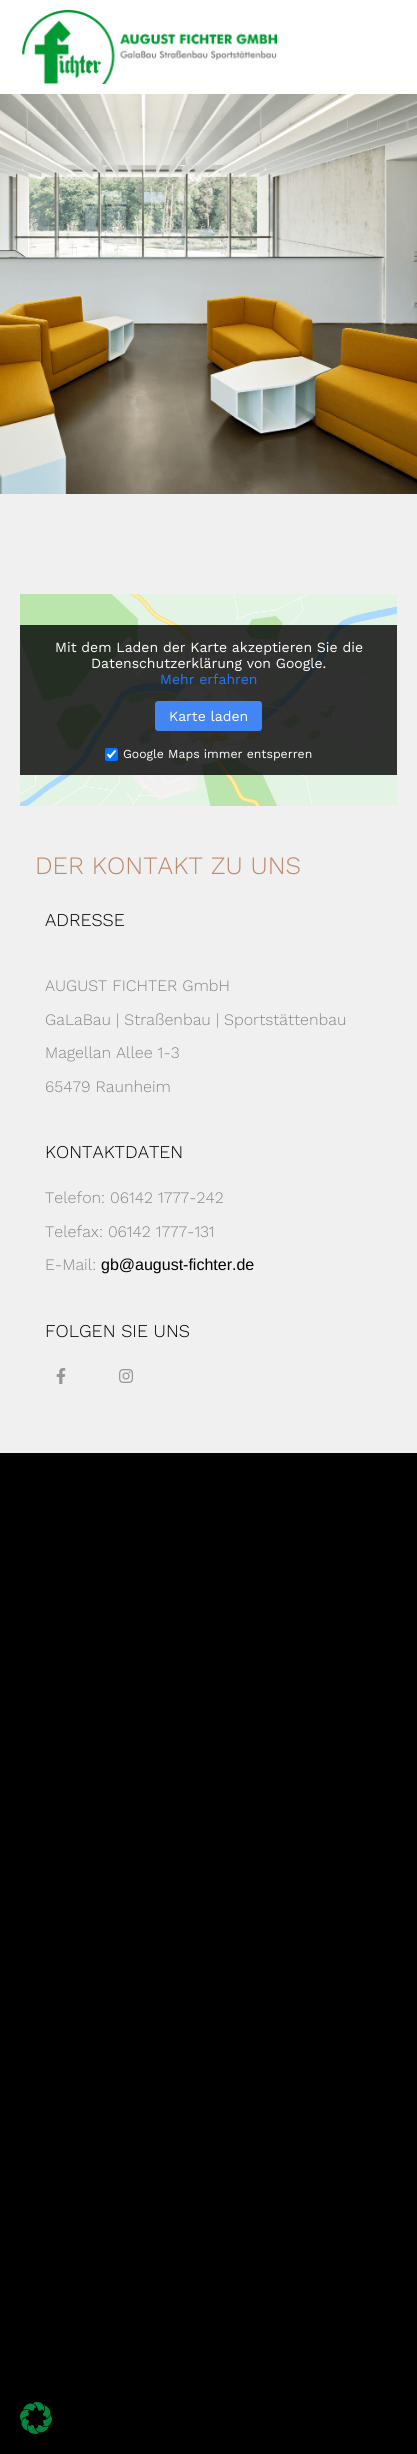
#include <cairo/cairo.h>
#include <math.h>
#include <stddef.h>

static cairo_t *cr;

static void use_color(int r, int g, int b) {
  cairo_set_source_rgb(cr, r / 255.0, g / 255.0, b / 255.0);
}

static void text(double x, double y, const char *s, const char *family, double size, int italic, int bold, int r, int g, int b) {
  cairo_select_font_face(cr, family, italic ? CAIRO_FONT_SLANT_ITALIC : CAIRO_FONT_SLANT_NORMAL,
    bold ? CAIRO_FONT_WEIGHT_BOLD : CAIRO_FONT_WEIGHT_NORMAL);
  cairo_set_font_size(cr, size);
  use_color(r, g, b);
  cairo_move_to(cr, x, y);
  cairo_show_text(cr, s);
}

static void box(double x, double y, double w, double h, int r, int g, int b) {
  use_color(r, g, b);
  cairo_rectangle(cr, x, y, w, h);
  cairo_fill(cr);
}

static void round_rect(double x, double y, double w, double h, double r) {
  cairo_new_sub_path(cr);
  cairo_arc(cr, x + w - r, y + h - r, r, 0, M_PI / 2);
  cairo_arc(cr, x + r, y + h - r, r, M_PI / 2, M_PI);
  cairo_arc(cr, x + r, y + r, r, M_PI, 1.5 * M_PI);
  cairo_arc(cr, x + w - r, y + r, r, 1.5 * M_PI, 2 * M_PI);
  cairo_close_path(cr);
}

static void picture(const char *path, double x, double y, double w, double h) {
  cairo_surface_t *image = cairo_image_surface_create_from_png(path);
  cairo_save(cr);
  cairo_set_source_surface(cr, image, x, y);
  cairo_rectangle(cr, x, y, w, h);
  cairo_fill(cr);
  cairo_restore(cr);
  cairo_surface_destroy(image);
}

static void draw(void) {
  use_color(255, 255, 255);
  cairo_paint(cr);
  picture("img_01.png", 22, 10, 255, 74);
  picture("img_02.png", 0, 94, 417, 400);
  box(0, 494, 417, 959, 240, 240, 240);
  picture("img_03.png", 20, 594, 377, 212);
  cairo_set_source_rgba(cr, 0, 0, 0, 0.8);
  cairo_rectangle(cr, 20, 625, 377, 150);
  cairo_fill(cr);
  use_color(66, 133, 244);
  round_rect(155, 701, 107, 30, 3);
  cairo_fill(cr);
  use_color(0, 117, 255);
  round_rect(105, 748, 13, 13, 2);
  cairo_fill(cr);
  cairo_new_path(cr);
  cairo_move_to(cr, 107.5, 754);
  cairo_line_to(cr, 110, 757);
  cairo_line_to(cr, 115.5, 750.5);
  use_color(255, 255, 255);
  cairo_set_line_width(cr, 2.1);
  cairo_stroke(cr);
  picture("img_04.png", 56, 1368, 10, 16);
  picture("img_05.png", 119, 1369, 14, 14);
  box(0, 1453, 417, 1001, 0, 0, 0);
  picture("img_06.png", 20, 2402, 32, 32);
  text(55, 652, "Mit dem Laden der Karte akzeptieren Sie die", "Work Sans", 14, 0, 0, 255, 255, 255);
  text(91, 668, "Datenschutzerklärung von Google.", "Work Sans", 14, 0, 0, 255, 255, 255);
  text(160, 684, "Mehr erfahren", "Work Sans", 14, 0, 0, 34, 119, 255);
  text(169, 721, "Karte laden", "Work Sans", 14, 0, 0, 255, 255, 255);
  text(123, 758, "Google Maps immer entsperren", "Work Sans", 12.25, 0, 0, 255, 255, 255);
  text(35, 874, "DER KONTAKT ZU UNS", "Work Sans Light", 25, 0, 0, 188, 139, 110);
  text(45, 926, "ADRESSE", "Work Sans Light", 18, 0, 0, 0, 0, 0);
  text(45, 991, "AUGUST FICHTER GmbH", "Work Sans Light", 16, 0, 0, 134, 134, 134);
  text(45, 1025, "GaLaBau | Straßenbau | Sportstättenbau", "Work Sans Light", 16, 0, 0, 134, 134, 134);
  text(45, 1058, "Magellan Allee 1-3", "Work Sans Light", 16, 0, 0, 134, 134, 134);
  text(45, 1092, "65479 Raunheim", "Work Sans Light", 16, 0, 0, 134, 134, 134);
  text(45, 1158, "KONTAKTDATEN", "Work Sans Light", 18, 0, 0, 0, 0, 0);
  text(45, 1203, "Telefon: 06142 1777-242", "Work Sans Light", 16, 0, 0, 134, 134, 134);
  text(45, 1237, "Telefax: 06142 1777-131", "Work Sans Light", 16, 0, 0, 134, 134, 134);
  text(45, 1270, "E-Mail:", "Work Sans Light", 16, 0, 0, 134, 134, 134);
  text(101, 1270, "gb@august-fichter.de", "Liberation Sans", 16, 0, 0, 0, 0, 0);
  text(45, 1337, "FOLGEN SIE UNS", "Work Sans Light", 18, 0, 0, 0, 0, 0);
}

int main(void) {
  cairo_surface_t *surface = cairo_image_surface_create(CAIRO_FORMAT_RGB24, 417, 2454);
  cr = cairo_create(surface);
  cairo_font_options_t *options = cairo_font_options_create();
  cairo_font_options_set_hint_metrics(options, CAIRO_HINT_METRICS_OFF);
  cairo_font_options_set_hint_style(options, CAIRO_HINT_STYLE_NONE);
  cairo_set_font_options(cr, options);
  cairo_set_miter_limit(cr, 4);
  draw();
  cairo_surface_write_to_png(surface, "out.png");
  cairo_font_options_destroy(options);
  cairo_destroy(cr);
  cairo_surface_destroy(surface);
  return 0;
}
